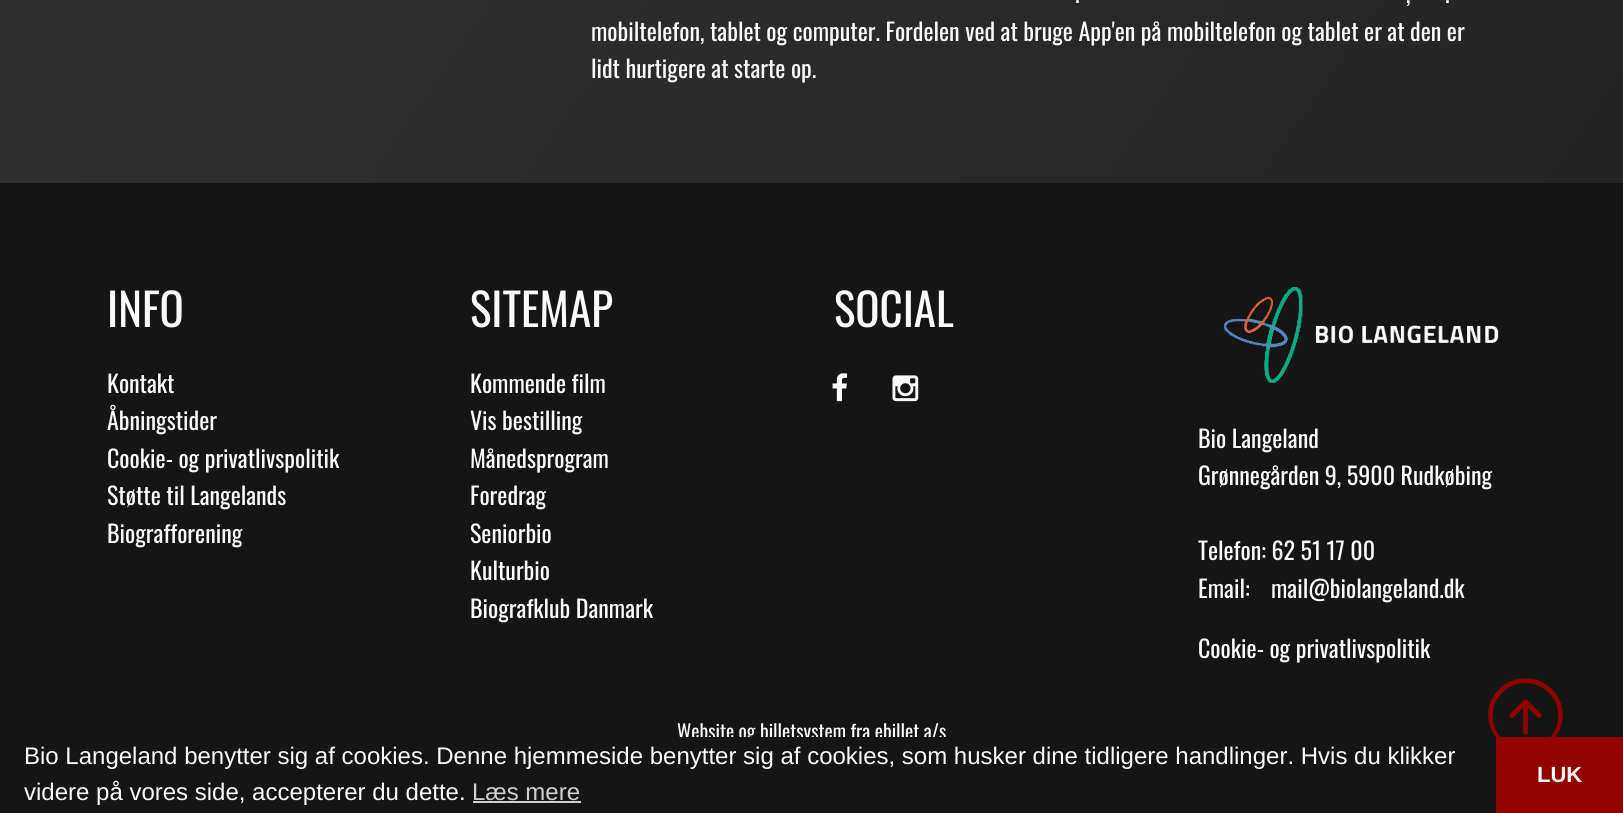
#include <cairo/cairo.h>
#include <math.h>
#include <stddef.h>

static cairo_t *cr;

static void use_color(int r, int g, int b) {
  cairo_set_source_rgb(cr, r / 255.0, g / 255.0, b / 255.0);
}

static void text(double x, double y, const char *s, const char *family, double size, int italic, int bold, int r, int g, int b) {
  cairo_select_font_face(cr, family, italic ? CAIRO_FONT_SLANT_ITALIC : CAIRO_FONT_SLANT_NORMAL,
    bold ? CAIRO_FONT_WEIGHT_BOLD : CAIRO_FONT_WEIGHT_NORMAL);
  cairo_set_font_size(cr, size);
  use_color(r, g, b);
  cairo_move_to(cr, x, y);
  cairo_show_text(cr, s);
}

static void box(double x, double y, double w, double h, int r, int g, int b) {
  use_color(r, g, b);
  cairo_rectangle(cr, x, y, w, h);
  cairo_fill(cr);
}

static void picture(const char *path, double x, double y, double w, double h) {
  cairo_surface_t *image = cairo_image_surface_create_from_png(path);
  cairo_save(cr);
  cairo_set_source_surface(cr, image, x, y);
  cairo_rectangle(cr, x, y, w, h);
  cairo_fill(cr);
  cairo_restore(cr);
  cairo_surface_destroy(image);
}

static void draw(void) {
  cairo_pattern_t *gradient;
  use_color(255, 255, 255);
  cairo_paint(cr);
  gradient = cairo_pattern_create_linear(1552, 285, 71, -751);
  cairo_pattern_add_color_stop_rgba(gradient, 0, 0.141, 0.141, 0.141, 1);
  cairo_pattern_add_color_stop_rgba(gradient, 1, 0.2, 0.2, 0.2, 1);
  cairo_set_source(cr, gradient);
  cairo_pattern_destroy(gradient);
  cairo_rectangle(cr, 0, 0, 1623, 183);
  cairo_fill(cr);
  box(0, 183, 1623, 554, 21, 21, 21);
  picture("img_01.png", 832, 373, 16, 29);
  picture("img_02.png", 892, 375, 27, 27);
  picture("img_03.png", 1223, 286, 276, 97);
  picture("img_04.png", 1488, 678, 75, 59);
  box(1496, 737, 127, 76, 146, 3, 0);
  text(1075, 3, ".", "Oswald", 24, 0, 0, 250, 250, 250);
  text(1406, 3, ",", "Oswald", 24, 0, 0, 250, 250, 250);
  text(1445, 3, ".", "Oswald", 24, 0, 0, 250, 250, 250);
  text(591, 41, "mobiltelefon, tablet og computer. Fordelen ved at bruge App'en på mobiltelefon og tablet er at den er", "Oswald", 24, 0, 0, 250, 250, 250);
  text(591, 78, "lidt hurtigere at starte op.", "Oswald", 24, 0, 0, 250, 250, 250);
  text(107, 327, "INFO", "Oswald", 45, 0, 0, 250, 250, 250);
  text(107, 393, "Kontakt", "Oswald", 24, 0, 0, 250, 250, 250);
  text(107, 430, "Åbningstider", "Oswald", 24, 0, 0, 250, 250, 250);
  text(107, 468, "Cookie- og privatlivspolitik", "Oswald", 24, 0, 0, 250, 250, 250);
  text(107, 505, "Støtte til Langelands", "Oswald", 24, 0, 0, 250, 250, 250);
  text(107, 543, "Biografforening", "Oswald", 24, 0, 0, 250, 250, 250);
  text(470, 327, "SITEMAP", "Oswald", 45, 0, 0, 250, 250, 250);
  text(470, 393, "Kommende film", "Oswald", 24, 0, 0, 250, 250, 250);
  text(470, 430, "Vis bestilling", "Oswald", 24, 0, 0, 250, 250, 250);
  text(470, 468, "Månedsprogram", "Oswald", 24, 0, 0, 250, 250, 250);
  text(470, 505, "Foredrag", "Oswald", 24, 0, 0, 250, 250, 250);
  text(470, 543, "Seniorbio", "Oswald", 24, 0, 0, 250, 250, 250);
  text(470, 580, "Kulturbio", "Oswald", 24, 0, 0, 250, 250, 250);
  text(470, 618, "Biografklub Danmark", "Oswald", 24, 0, 0, 250, 250, 250);
  text(834, 327, "SOCIAL", "Oswald", 45, 0, 0, 250, 250, 250);
  text(1198, 448, "Bio Langeland", "Oswald", 24, 0, 0, 250, 250, 250);
  text(1198, 485, "Grønnegården 9, 5900 Rudkøbing", "Oswald", 24, 0, 0, 250, 250, 250);
  text(1198, 560, "Telefon: 62 51 17 00", "Oswald", 24, 0, 0, 250, 250, 250);
  text(1198, 598, "Email:", "Oswald", 24, 0, 0, 250, 250, 250);
  text(1271, 598, "mail@biolangeland.dk", "Oswald", 24, 0, 0, 250, 250, 250);
  text(1198, 658, "Cookie- og privatlivspolitik", "Oswald", 24, 0, 0, 250, 250, 250);
  text(677, 739, "Website og billetsystem fra ebillet a/s", "Oswald", 19.5, 0, 0, 250, 250, 250);
  box(0, 737, 1496, 76, 21, 21, 21);
  text(24, 764, "Bio Langeland benytter sig af cookies. Denne hjemmeside benytter sig af cookies, som husker dine tidligere handlinger. Hvis du klikker", "Liberation Sans", 24, 0, 0, 250, 250, 250);
  text(24, 800, "videre på vores side, accepterer du dette.", "Liberation Sans", 24, 0, 0, 250, 250, 250);
  text(472, 800, "Læs mere", "Liberation Sans", 24, 0, 0, 208, 208, 208);
  box(473, 801, 108, 2, 208, 208, 208);
  text(1537, 782, "LUK", "Liberation Sans", 22, 0, 1, 250, 250, 250);
}

int main(void) {
  cairo_surface_t *surface = cairo_image_surface_create(CAIRO_FORMAT_RGB24, 1623, 813);
  cr = cairo_create(surface);
  cairo_font_options_t *options = cairo_font_options_create();
  cairo_font_options_set_hint_metrics(options, CAIRO_HINT_METRICS_OFF);
  cairo_font_options_set_hint_style(options, CAIRO_HINT_STYLE_NONE);
  cairo_set_font_options(cr, options);
  cairo_set_miter_limit(cr, 4);
  draw();
  cairo_surface_write_to_png(surface, "out.png");
  cairo_font_options_destroy(options);
  cairo_destroy(cr);
  cairo_surface_destroy(surface);
  return 0;
}
